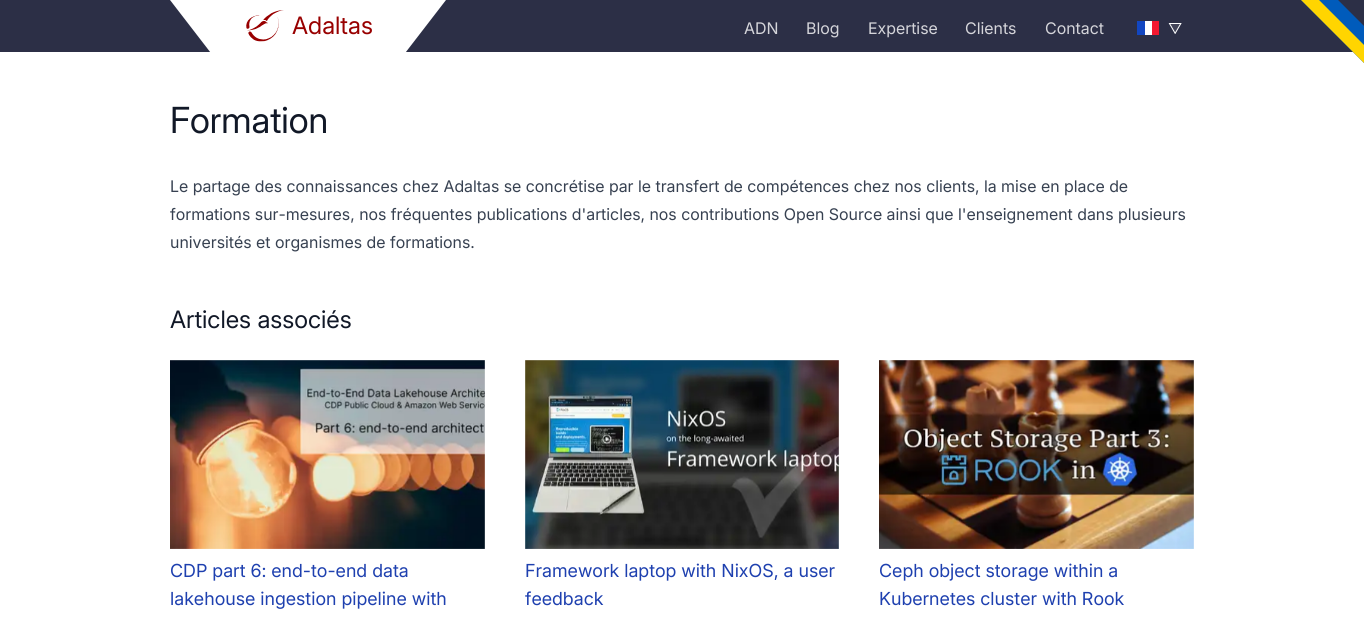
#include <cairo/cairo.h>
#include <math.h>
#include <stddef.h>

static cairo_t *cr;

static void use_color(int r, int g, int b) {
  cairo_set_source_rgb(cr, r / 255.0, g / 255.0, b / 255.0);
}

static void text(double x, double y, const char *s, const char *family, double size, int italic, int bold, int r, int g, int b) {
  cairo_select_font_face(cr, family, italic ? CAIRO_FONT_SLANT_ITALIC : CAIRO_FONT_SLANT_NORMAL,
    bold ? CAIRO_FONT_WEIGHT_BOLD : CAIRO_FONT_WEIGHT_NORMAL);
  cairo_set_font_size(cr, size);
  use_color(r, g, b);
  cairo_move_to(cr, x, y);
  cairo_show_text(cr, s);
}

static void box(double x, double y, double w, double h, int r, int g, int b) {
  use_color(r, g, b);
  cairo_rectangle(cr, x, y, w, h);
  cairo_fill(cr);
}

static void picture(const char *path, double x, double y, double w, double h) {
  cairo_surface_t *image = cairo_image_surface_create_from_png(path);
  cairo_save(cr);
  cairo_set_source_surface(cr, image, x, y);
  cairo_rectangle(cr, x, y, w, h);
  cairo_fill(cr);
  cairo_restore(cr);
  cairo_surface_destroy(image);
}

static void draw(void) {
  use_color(255, 255, 255);
  cairo_paint(cr);
  box(0, 0, 1364, 52, 44, 47, 70);
  cairo_save(cr);
  cairo_rectangle(cr, 170, 0, 276, 52);
  cairo_clip(cr);
  use_color(255, 255, 255);
  cairo_new_path(cr);
  cairo_move_to(cr, 308, 179);
  cairo_line_to(cr, 170, 0);
  cairo_line_to(cr, 446, 0);
  cairo_close_path(cr);
  cairo_fill(cr);
  cairo_restore(cr);
  picture("img_01.png", 246, 10, 38, 32);
  box(1145, 21, 7, 14, 255, 255, 255);
  box(1137, 21, 8, 14, 18, 70, 193);
  box(1152, 21, 7, 14, 243, 24, 48);
  picture("img_02.png", 1168, 23, 14, 11);
  use_color(0, 91, 187);
  cairo_new_path(cr);
  cairo_move_to(cr, 1199, -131);
  cairo_line_to(cr, 1184, -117);
  cairo_line_to(cr, 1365, 64);
  cairo_line_to(cr, 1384, 46);
  cairo_line_to(cr, 1203, -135);
  cairo_close_path(cr);
  cairo_fill(cr);
  use_color(255, 213, 0);
  cairo_new_path(cr);
  cairo_move_to(cr, 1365, 64);
  cairo_line_to(cr, 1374, 55);
  cairo_line_to(cr, 1193, -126);
  cairo_line_to(cr, 1184, -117);
  cairo_close_path(cr);
  cairo_fill(cr);
  picture("img_03.png", 170, 360, 315, 189);
  picture("img_04.png", 525, 360, 314, 189);
  picture("img_05.png", 879, 360, 315, 189);
  text(292, 34, "Adaltas", "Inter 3", 24, 0, 0, 152, 0, 0);
  text(744, 34, "ADN", "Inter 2", 16, 0, 0, 213, 213, 218);
  text(806, 34, "Blog", "Inter 2", 16, 0, 0, 213, 213, 218);
  text(868, 34, "Expertise", "Inter 2", 16, 0, 0, 213, 213, 218);
  text(965, 34, "Clients", "Inter 2", 16, 0, 0, 213, 213, 218);
  text(1045, 34, "Contact", "Inter 2", 16, 0, 0, 213, 213, 218);
  text(170, 133, "Formation", "Inter", 36, 0, 0, 17, 24, 39);
  text(170, 192, "Le partage des connaissances chez Adaltas se concrétise par le transfert de compétences chez nos clients, la mise en place de", "Inter 2", 16, 0, 0, 55, 65, 81);
  text(170, 220, "formations sur-mesures, nos fréquentes publications d'articles, nos contributions Open Source ainsi que l'enseignement dans plusieurs", "Inter 2", 16, 0, 0, 55, 65, 81);
  text(170, 248, "universités et organismes de formations.", "Inter 2", 16, 0, 0, 55, 65, 81);
  text(170, 328, "Articles associés", "Inter 3", 24, 0, 0, 17, 24, 39);
  text(170, 577, "CDP part 6: end-to-end data", "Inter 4", 18, 0, 0, 30, 64, 175);
  text(170, 605, "lakehouse ingestion pipeline with", "Inter 4", 18, 0, 0, 30, 64, 175);
  text(525, 577, "Framework laptop with NixOS, a user", "Inter 4", 18, 0, 0, 30, 64, 175);
  text(525, 605, "feedback", "Inter 4", 18, 0, 0, 30, 64, 175);
  text(879, 577, "Ceph object storage within a", "Inter 4", 18, 0, 0, 30, 64, 175);
  text(879, 605, "Kubernetes cluster with Rook", "Inter 4", 18, 0, 0, 30, 64, 175);
}

int main(void) {
  cairo_surface_t *surface = cairo_image_surface_create(CAIRO_FORMAT_RGB24, 1364, 623);
  cr = cairo_create(surface);
  cairo_font_options_t *options = cairo_font_options_create();
  cairo_font_options_set_hint_metrics(options, CAIRO_HINT_METRICS_OFF);
  cairo_font_options_set_hint_style(options, CAIRO_HINT_STYLE_NONE);
  cairo_set_font_options(cr, options);
  cairo_set_miter_limit(cr, 4);
  draw();
  cairo_surface_write_to_png(surface, "out.png");
  cairo_font_options_destroy(options);
  cairo_destroy(cr);
  cairo_surface_destroy(surface);
  return 0;
}
